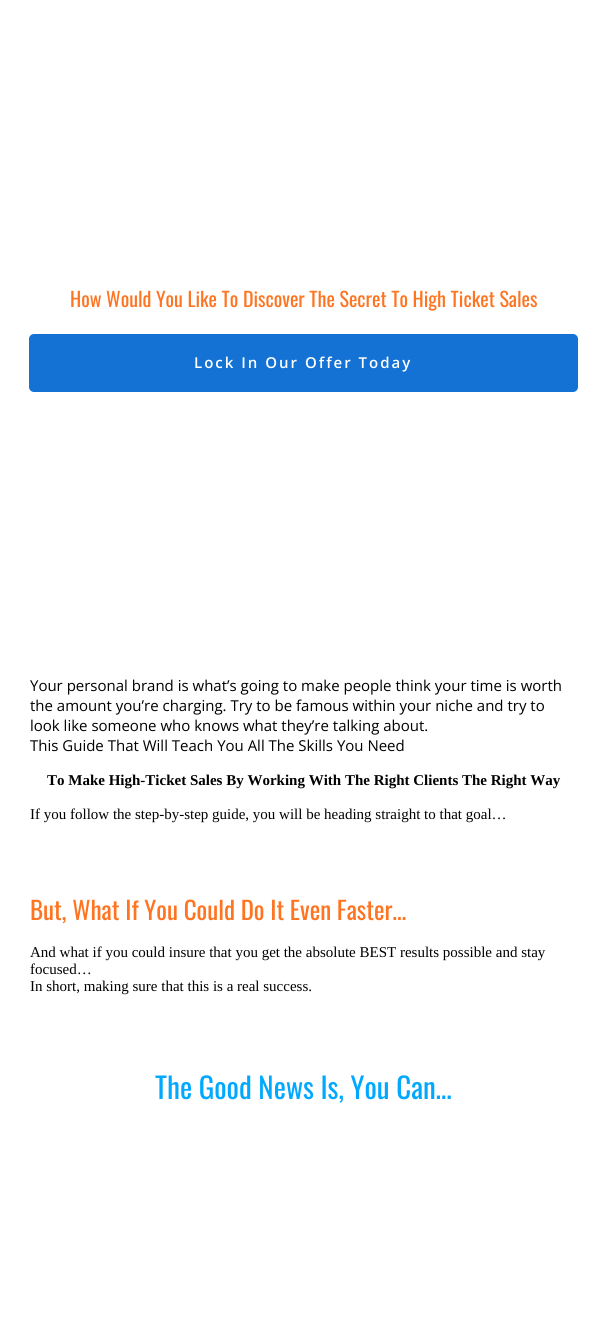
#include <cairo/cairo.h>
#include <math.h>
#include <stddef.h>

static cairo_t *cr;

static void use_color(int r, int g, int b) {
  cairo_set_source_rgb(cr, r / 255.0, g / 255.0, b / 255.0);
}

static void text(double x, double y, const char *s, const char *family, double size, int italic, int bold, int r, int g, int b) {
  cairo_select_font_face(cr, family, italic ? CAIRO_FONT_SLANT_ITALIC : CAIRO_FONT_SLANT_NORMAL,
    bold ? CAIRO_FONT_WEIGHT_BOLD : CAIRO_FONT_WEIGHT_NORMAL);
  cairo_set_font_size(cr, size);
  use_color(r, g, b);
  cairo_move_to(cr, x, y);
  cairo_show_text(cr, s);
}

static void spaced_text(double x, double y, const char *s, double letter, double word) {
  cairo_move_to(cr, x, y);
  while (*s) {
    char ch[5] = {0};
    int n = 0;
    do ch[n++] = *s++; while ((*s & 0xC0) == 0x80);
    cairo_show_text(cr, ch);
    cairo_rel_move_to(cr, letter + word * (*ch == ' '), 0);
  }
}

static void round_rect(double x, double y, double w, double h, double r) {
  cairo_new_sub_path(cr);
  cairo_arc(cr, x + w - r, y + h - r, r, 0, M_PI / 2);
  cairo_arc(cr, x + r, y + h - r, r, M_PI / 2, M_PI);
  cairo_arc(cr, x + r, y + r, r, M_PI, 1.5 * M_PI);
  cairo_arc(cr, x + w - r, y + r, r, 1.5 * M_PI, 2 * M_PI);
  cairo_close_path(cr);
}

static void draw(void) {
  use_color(255, 255, 255);
  cairo_paint(cr);
  use_color(19, 114, 211);
  round_rect(29, 334, 549, 58, 5);
  cairo_fill(cr);
  text(70, 307, "How Would You Like To Discover The Secret To High Ticket Sales", "Oswald", 20, 0, 0, 255, 116, 32);
  cairo_select_font_face(cr, "Open Sans SemiBold", CAIRO_FONT_SLANT_NORMAL, CAIRO_FONT_WEIGHT_NORMAL);
  cairo_set_font_size(cr, 15);
  use_color(255, 255, 255);
  spaced_text(194, 368, "Lock In Our Offer Today", 2, 0);
  text(30, 691, "Your personal brand is what’s going to make people think your time is worth", "Open Sans", 15, 0, 0, 0, 0, 0);
  text(30, 711, "the amount you’re charging. Try to be famous within your niche and try to", "Open Sans", 15, 0, 0, 0, 0, 0);
  text(30, 731, "look like someone who knows what they’re talking about.", "Open Sans", 15, 0, 0, 0, 0, 0);
  text(30, 751, "This Guide That Will Teach You All The Skills You Need", "Open Sans", 15, 0, 0, 0, 0, 0);
  text(47, 785, "To Make High-Ticket Sales By Working With The Right Clients The Right Way", "Liberation Serif", 15, 0, 1, 0, 0, 0);
  text(30, 819, "If you follow the step-by-step guide, you will be heading straight to that goal…", "Liberation Serif", 15, 0, 0, 0, 0, 0);
  text(30, 920, "But, What If You Could Do It Even Faster…", "Oswald", 25, 0, 0, 255, 116, 32);
  text(30, 957, "And what if you could insure that you get the absolute BEST results possible and stay", "Liberation Serif", 15, 0, 0, 0, 0, 0);
  text(30, 974, "focused…", "Liberation Serif", 15, 0, 0, 0, 0, 0);
  text(30, 991, "In short, making sure that this is a real success.", "Liberation Serif", 15, 0, 0, 0, 0, 0);
  text(155, 1099, "The Good News Is, You Can…", "Oswald", 29, 0, 0, 0, 168, 255);
}

int main(void) {
  cairo_surface_t *surface = cairo_image_surface_create(CAIRO_FORMAT_RGB24, 607, 1340);
  cr = cairo_create(surface);
  cairo_font_options_t *options = cairo_font_options_create();
  cairo_font_options_set_hint_metrics(options, CAIRO_HINT_METRICS_OFF);
  cairo_font_options_set_hint_style(options, CAIRO_HINT_STYLE_NONE);
  cairo_set_font_options(cr, options);
  cairo_set_miter_limit(cr, 4);
  draw();
  cairo_surface_write_to_png(surface, "out.png");
  cairo_font_options_destroy(options);
  cairo_destroy(cr);
  cairo_surface_destroy(surface);
  return 0;
}
